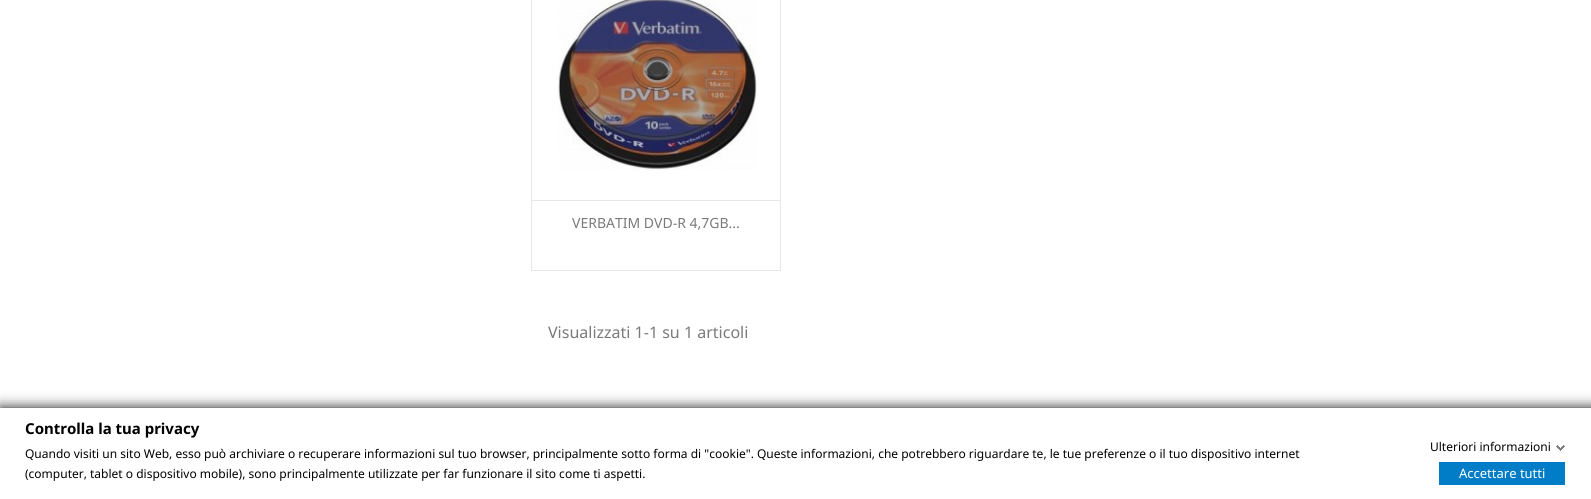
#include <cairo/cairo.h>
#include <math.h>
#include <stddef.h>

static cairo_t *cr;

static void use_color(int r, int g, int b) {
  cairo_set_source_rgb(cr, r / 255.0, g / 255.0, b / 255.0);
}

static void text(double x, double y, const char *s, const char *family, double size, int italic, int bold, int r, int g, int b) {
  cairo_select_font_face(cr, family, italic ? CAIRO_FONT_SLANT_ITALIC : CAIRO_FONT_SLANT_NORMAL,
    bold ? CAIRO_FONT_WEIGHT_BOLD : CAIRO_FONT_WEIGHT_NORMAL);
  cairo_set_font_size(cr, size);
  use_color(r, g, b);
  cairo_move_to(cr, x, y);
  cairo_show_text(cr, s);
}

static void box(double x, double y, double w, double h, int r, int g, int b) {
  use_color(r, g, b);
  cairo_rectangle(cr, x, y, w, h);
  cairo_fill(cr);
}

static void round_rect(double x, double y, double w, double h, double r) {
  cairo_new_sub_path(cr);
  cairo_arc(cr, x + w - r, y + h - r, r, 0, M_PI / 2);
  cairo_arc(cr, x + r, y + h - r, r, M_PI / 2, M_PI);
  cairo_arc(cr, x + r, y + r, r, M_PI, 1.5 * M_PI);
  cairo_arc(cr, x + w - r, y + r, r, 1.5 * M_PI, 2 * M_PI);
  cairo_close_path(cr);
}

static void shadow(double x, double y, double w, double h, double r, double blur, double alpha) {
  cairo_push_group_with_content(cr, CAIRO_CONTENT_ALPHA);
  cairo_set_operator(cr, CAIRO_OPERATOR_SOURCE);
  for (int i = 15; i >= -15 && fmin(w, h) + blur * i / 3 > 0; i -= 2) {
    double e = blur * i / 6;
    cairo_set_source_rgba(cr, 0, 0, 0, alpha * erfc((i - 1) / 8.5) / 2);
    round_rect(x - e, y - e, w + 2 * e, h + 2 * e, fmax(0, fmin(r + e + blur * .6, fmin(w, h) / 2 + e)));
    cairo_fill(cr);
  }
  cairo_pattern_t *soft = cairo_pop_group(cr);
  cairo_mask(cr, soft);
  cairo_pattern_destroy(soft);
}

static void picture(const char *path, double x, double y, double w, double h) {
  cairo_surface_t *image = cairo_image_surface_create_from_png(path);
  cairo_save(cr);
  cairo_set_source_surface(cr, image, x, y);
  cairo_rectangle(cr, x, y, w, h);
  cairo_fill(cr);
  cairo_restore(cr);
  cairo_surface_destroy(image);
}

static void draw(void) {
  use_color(255, 255, 255);
  cairo_paint(cr);
  cairo_rectangle(cr, 531.5, -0.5, 249, 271);
  use_color(230, 230, 230);
  cairo_set_line_width(cr, 1);
  cairo_stroke(cr);
  picture("img_01.png", 558, 0, 199, 170);
  box(780, 200, 1, 70, 255, 255, 255);
  use_color(230, 230, 230);
  cairo_new_path(cr);
  cairo_move_to(cr, 532, 200);
  cairo_line_to(cr, 781, 200);
  cairo_line_to(cr, 780, 201);
  cairo_line_to(cr, 532, 201);
  cairo_close_path(cr);
  cairo_fill(cr);
  cairo_set_source_rgba(cr, 0, 0, 0, 0.1);
  cairo_new_path(cr);
  cairo_move_to(cr, 781, 200);
  cairo_line_to(cr, 781, 270);
  cairo_line_to(cr, 780, 270);
  cairo_line_to(cr, 780, 201);
  cairo_close_path(cr);
  cairo_fill(cr);
  use_color(18, 18, 18);
  shadow(0, 408, 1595, 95, 0, 7, 1);
  box(0, 408, 1591, 91, 255, 255, 255);
  picture("img_02.png", 1556, 445, 9, 6);
  box(1439, 462, 126, 23, 0, 125, 198);
  text(572, 228, "VERBATIM DVD-R 4,7GB...", "Noto Sans", 14, 0, 0, 122, 122, 122);
  text(548, 338, "Visualizzati 1-1 su 1 articoli", "Noto Sans", 16, 0, 0, 122, 122, 122);
  text(25, 434, "Controlla la tua privacy", "Noto Sans", 15, 0, 1, 0, 0, 0);
  text(25, 458, "Quando visiti un sito Web, esso può archiviare o recuperare informazioni sul tuo browser, principalmente sotto forma di \"cookie\". Queste informazioni, che potrebbero riguardare te, le tue preferenze o il tuo dispositivo internet", "Noto Sans", 12, 0, 0, 0, 0, 0);
  text(25, 478, "(computer, tablet o dispositivo mobile), sono principalmente utilizzate per far funzionare il sito come ti aspetti.", "Noto Sans", 12, 0, 0, 0, 0, 0);
  text(1430, 451, "Ulteriori informazioni", "Noto Sans", 12, 0, 0, 0, 0, 0);
  text(1459, 478, "Accettare tutti", "Noto Sans", 13, 0, 0, 255, 255, 255);
}

int main(void) {
  cairo_surface_t *surface = cairo_image_surface_create(CAIRO_FORMAT_RGB24, 1591, 499);
  cr = cairo_create(surface);
  cairo_font_options_t *options = cairo_font_options_create();
  cairo_font_options_set_hint_metrics(options, CAIRO_HINT_METRICS_OFF);
  cairo_font_options_set_hint_style(options, CAIRO_HINT_STYLE_NONE);
  cairo_set_font_options(cr, options);
  cairo_set_miter_limit(cr, 4);
  draw();
  cairo_surface_write_to_png(surface, "out.png");
  cairo_font_options_destroy(options);
  cairo_destroy(cr);
  cairo_surface_destroy(surface);
  return 0;
}
